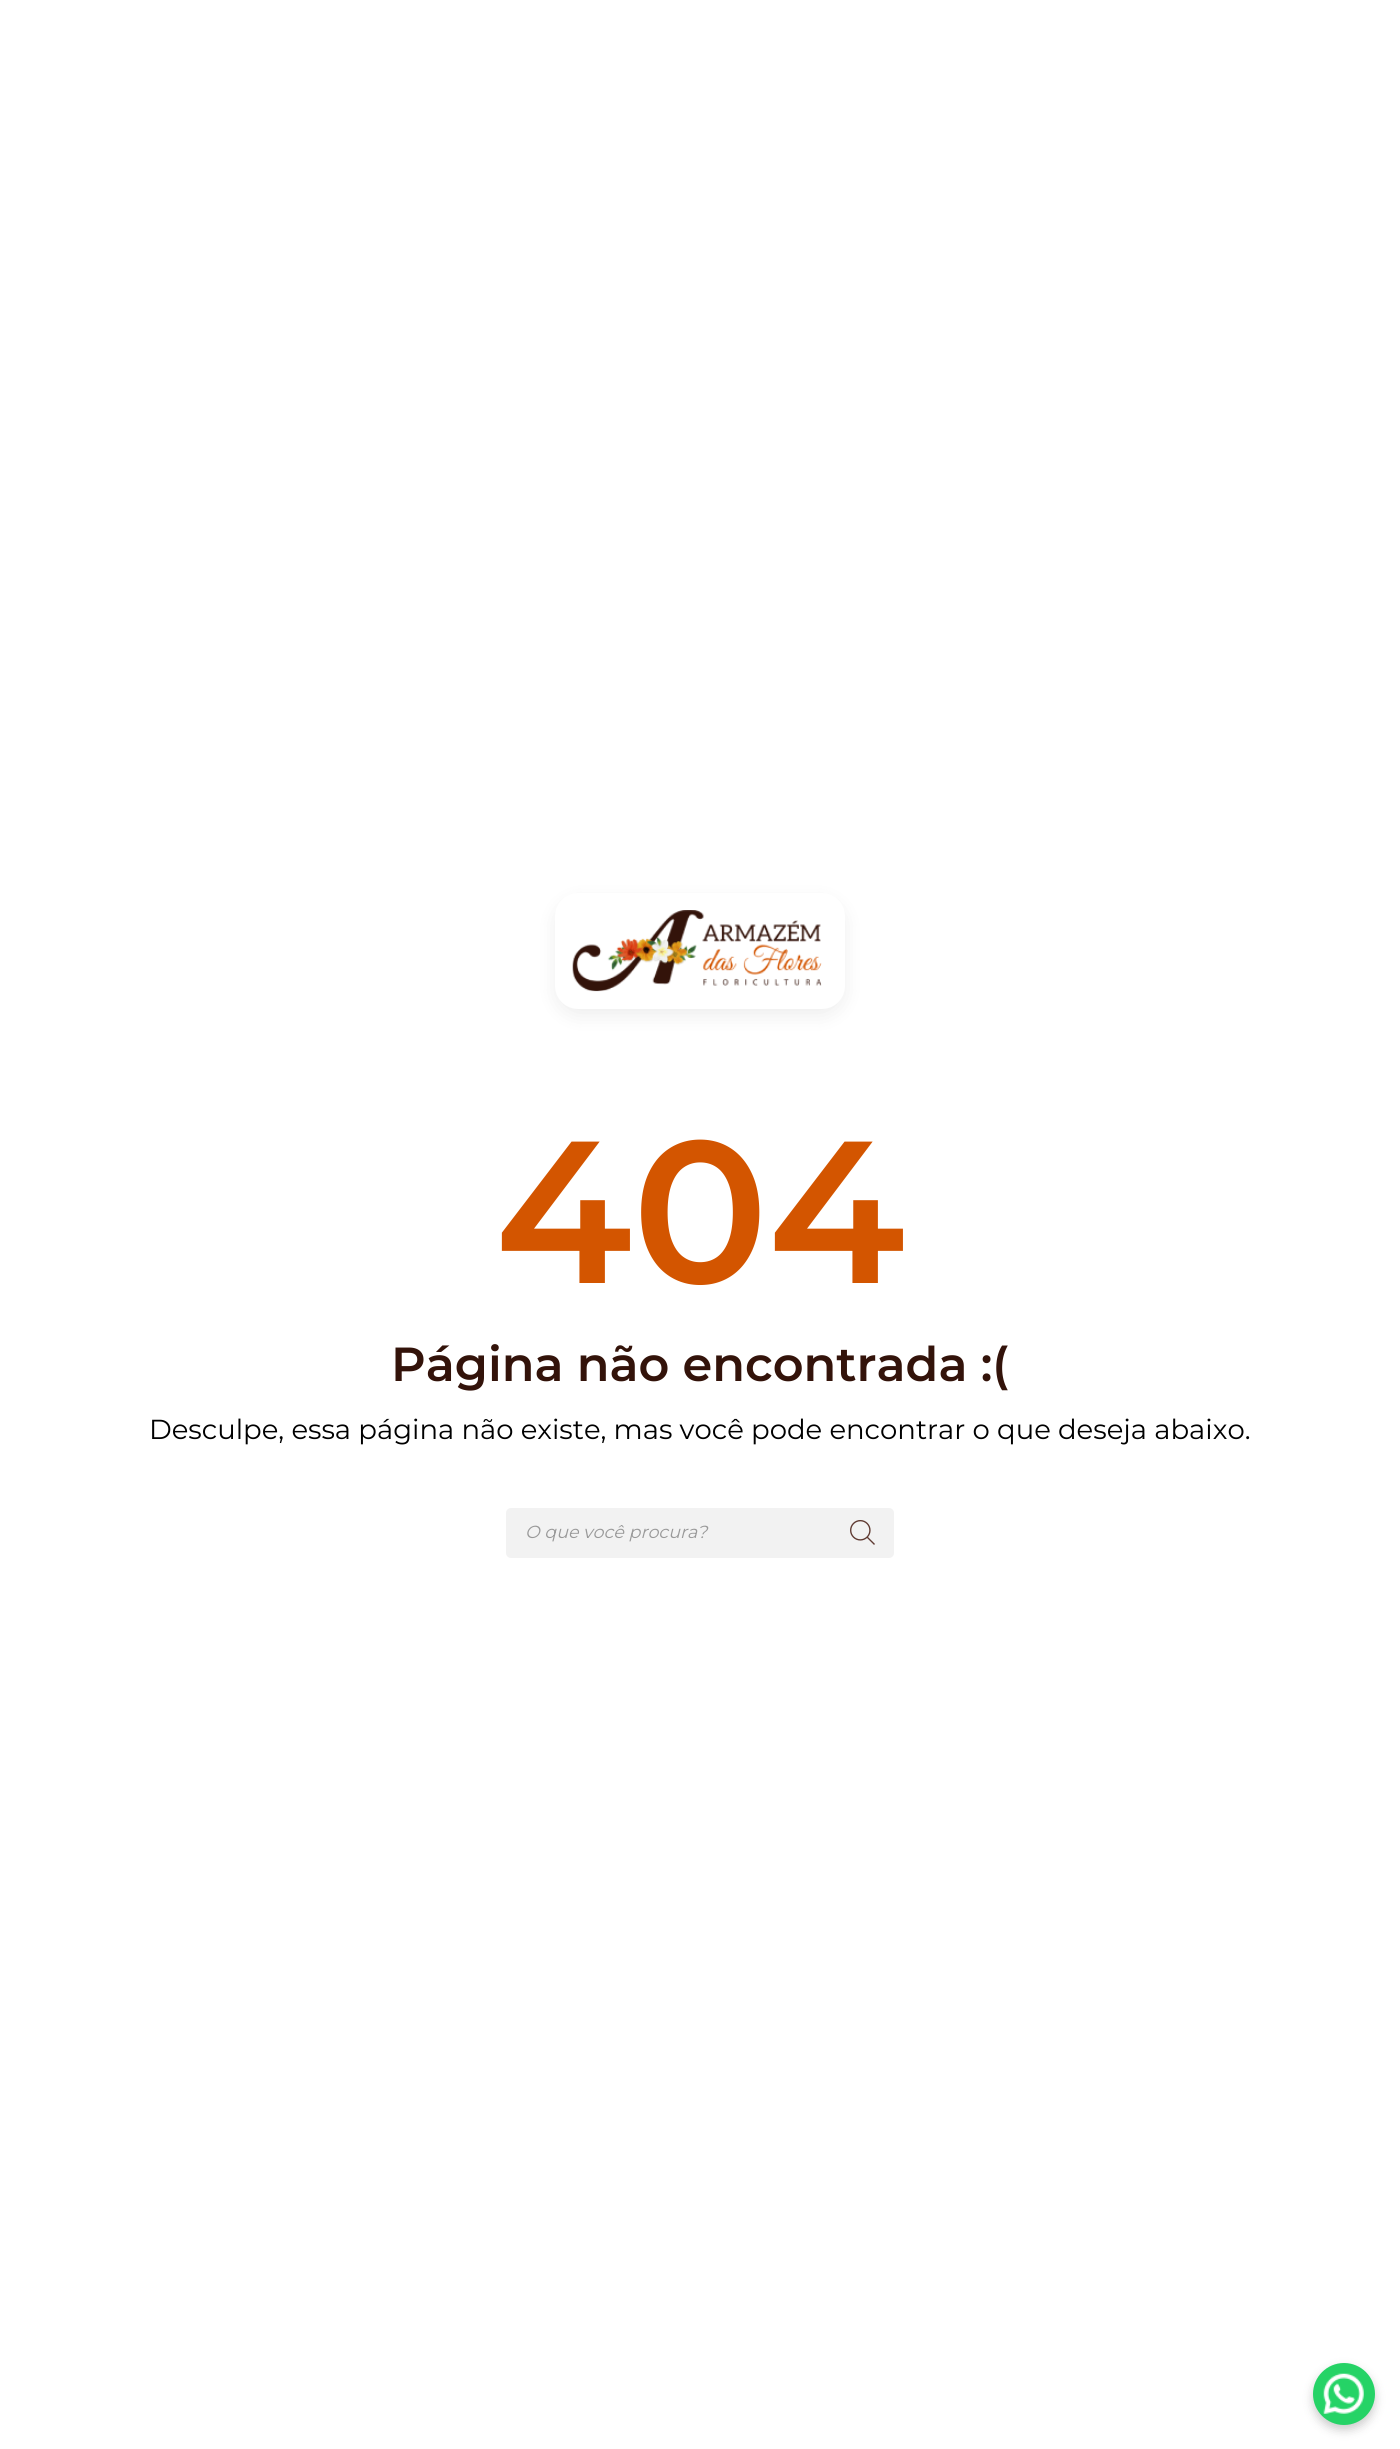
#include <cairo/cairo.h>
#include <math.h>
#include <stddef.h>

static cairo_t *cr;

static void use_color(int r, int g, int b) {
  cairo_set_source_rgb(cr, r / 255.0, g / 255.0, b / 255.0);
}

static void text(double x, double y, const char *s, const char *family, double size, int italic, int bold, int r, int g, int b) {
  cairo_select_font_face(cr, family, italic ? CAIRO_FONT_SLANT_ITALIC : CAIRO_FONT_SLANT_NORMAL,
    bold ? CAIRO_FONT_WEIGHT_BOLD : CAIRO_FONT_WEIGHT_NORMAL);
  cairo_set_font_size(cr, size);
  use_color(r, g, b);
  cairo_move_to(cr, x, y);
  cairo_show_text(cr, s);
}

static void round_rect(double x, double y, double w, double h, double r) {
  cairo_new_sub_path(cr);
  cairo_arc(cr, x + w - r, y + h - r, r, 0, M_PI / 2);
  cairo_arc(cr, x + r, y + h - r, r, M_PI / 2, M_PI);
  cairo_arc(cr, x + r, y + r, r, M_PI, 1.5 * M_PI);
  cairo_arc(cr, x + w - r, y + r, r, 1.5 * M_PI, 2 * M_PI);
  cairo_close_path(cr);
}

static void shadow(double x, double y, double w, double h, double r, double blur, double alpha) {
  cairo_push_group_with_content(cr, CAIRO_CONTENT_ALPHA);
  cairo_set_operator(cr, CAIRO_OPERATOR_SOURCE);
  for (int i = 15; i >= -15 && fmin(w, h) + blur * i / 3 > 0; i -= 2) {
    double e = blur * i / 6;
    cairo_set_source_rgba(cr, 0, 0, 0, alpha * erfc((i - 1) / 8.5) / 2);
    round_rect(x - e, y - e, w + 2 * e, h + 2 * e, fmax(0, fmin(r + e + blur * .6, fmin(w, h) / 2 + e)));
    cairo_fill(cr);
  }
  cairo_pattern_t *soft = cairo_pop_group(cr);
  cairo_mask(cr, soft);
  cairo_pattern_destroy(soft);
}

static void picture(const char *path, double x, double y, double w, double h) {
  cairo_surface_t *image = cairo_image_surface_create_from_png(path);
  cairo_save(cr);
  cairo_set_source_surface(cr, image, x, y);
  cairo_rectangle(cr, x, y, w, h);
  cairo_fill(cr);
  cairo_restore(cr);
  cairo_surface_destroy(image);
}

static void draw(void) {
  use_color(255, 255, 255);
  cairo_paint(cr);
  use_color(0, 0, 0);
  shadow(555, 900, 290, 116, 23, 10, 0.07);
  use_color(255, 255, 255);
  round_rect(564, 902, 272, 98, 14);
  cairo_fill_preserve(cr);
  cairo_set_line_width(cr, 18);
  cairo_stroke(cr);
  picture("img_01.png", 572, 910, 250, 82);
  use_color(242, 242, 242);
  round_rect(506, 1508, 388, 50, 5);
  cairo_fill(cr);
  picture("img_02.png", 850, 1520, 25, 25);
  use_color(0, 0, 0);
  shadow(1313, 2368, 62, 62, 31, 5, 0.2);
  use_color(37, 211, 102);
  cairo_arc(cr, 1344, 2394, 31, 0, 2 * M_PI);
  cairo_fill(cr);
  picture("img_03.png", 1323, 2373, 41, 41);
  text(495, 1283, "404", "Montserrat SemiBold", 202, 0, 0, 211, 85, 0);
  text(391, 1381, "Página não encontrada :(", "Montserrat SemiBold", 47.8, 0, 0, 51, 19, 10);
  text(149, 1439, "Desculpe, essa página não existe, mas você pode encontrar o que deseja abaixo.", "Montserrat", 27.5, 0, 0, 0, 0, 0);
  text(525, 1538, "O que você procura?", "Montserrat", 17.5, 1, 0, 153, 153, 153);
}

int main(void) {
  cairo_surface_t *surface = cairo_image_surface_create(CAIRO_FORMAT_RGB24, 1400, 2449);
  cr = cairo_create(surface);
  cairo_font_options_t *options = cairo_font_options_create();
  cairo_font_options_set_hint_metrics(options, CAIRO_HINT_METRICS_OFF);
  cairo_font_options_set_hint_style(options, CAIRO_HINT_STYLE_NONE);
  cairo_set_font_options(cr, options);
  cairo_set_miter_limit(cr, 4);
  draw();
  cairo_surface_write_to_png(surface, "out.png");
  cairo_font_options_destroy(options);
  cairo_destroy(cr);
  cairo_surface_destroy(surface);
  return 0;
}
